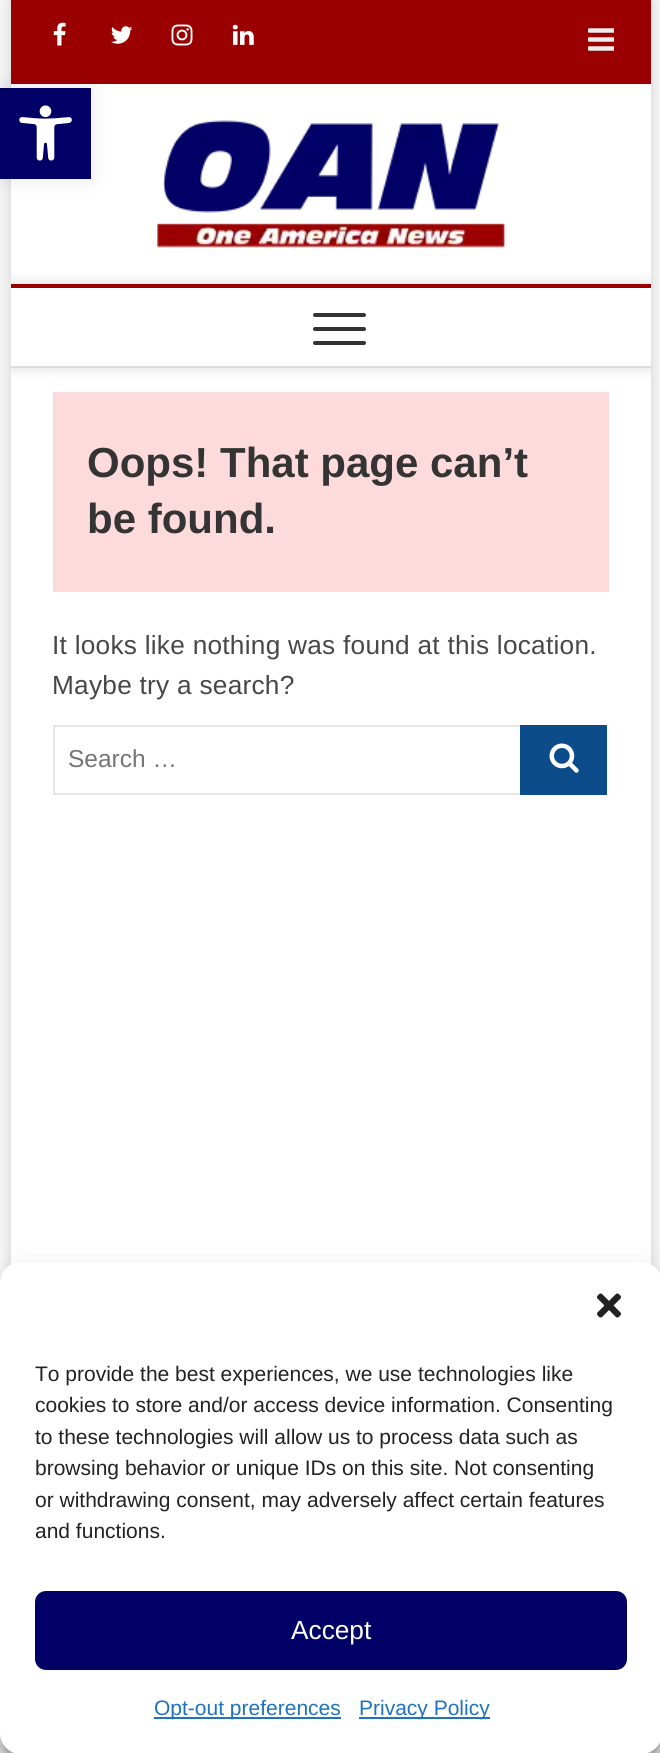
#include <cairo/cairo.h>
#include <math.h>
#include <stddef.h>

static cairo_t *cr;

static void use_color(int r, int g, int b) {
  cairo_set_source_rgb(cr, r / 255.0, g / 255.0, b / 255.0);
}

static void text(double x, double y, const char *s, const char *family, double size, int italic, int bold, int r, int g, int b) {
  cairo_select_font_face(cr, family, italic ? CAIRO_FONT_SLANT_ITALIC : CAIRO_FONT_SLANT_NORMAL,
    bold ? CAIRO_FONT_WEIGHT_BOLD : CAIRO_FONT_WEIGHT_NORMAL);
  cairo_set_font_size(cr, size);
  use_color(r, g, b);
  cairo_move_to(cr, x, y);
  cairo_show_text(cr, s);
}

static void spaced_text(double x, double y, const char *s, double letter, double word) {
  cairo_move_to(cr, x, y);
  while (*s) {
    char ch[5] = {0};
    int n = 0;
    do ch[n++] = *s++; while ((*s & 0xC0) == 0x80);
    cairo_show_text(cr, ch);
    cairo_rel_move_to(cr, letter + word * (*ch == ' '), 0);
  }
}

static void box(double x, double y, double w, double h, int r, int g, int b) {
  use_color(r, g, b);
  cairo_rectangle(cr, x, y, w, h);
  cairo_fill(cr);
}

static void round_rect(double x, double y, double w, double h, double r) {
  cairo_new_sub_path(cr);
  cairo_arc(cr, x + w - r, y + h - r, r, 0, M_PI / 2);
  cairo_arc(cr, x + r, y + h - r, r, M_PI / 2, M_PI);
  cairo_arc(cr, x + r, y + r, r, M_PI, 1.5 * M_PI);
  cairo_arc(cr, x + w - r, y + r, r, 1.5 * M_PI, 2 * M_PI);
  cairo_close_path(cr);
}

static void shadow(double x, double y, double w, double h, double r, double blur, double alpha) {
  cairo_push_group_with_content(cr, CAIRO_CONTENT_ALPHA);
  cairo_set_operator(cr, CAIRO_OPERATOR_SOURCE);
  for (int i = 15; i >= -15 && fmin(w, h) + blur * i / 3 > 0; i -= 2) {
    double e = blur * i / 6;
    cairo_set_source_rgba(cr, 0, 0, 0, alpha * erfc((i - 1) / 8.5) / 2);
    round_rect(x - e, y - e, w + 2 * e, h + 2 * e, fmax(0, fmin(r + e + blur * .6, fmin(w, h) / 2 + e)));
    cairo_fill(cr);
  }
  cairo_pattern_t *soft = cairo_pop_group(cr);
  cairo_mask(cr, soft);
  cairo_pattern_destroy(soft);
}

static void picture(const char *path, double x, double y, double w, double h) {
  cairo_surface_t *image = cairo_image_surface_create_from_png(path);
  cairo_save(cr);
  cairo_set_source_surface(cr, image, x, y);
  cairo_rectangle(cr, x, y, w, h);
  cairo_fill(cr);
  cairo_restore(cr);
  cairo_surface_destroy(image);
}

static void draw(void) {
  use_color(244, 244, 244);
  cairo_paint(cr);
  use_color(0, 0, 0);
  shadow(11, 2, 640, 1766, 0, 5, 0.15);
  box(11, 84, 640, 1669, 255, 255, 255);
  box(11, 0, 640, 84, 154, 0, 0);
  use_color(0, 0, 0);
  shadow(0, 88, 91, 91, 0, 9, 0.1);
  box(0, 88, 91, 91, 1, 0, 102);
  picture("img_01.png", 19, 105, 53, 56);
  picture("img_02.png", 53, 22, 13, 24);
  picture("img_03.png", 111, 26, 22, 18);
  picture("img_04.png", 171, 24, 22, 22);
  picture("img_05.png", 232, 24, 22, 21);
  picture("img_06.png", 588, 28, 26, 23);
  picture("img_07.png", 157, 120, 348, 128);
  cairo_save(cr);
  cairo_rectangle(cr, 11, 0, 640, 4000);
  cairo_clip(cr);
  use_color(0, 0, 0);
  shadow(11, 284, 640, 84, 0, 7, 0.15);
  cairo_restore(cr);
  box(11, 288, 640, 78, 255, 255, 255);
  box(11, 284, 640, 4, 154, 0, 0);
  box(11, 366, 640, 2, 221, 221, 221);
  use_color(51, 51, 51);
  round_rect(313, 327, 53, 4, 2);
  cairo_fill(cr);
  round_rect(313, 313, 53, 4, 2);
  cairo_fill(cr);
  round_rect(313, 341, 53, 4, 2);
  cairo_fill(cr);
  box(53, 392, 556, 200, 253, 219, 221);
  cairo_rectangle(cr, 54, 726, 467, 68);
  use_color(230, 230, 230);
  cairo_stroke(cr);
  box(520, 725, 87, 70, 12, 76, 138);
  picture("img_08.png", 549, 743, 30, 30);
  use_color(0, 0, 0);
  shadow(0, 1272, 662, 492, 21, 5, 0.23);
  shadow(0, 1279, 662, 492, 21, 17.5, 0.19);
  use_color(255, 255, 255);
  round_rect(0, 1262, 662, 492, 21);
  cairo_fill(cr);
  picture("img_09.png", 597, 1293, 24, 25);
  use_color(1, 0, 102);
  round_rect(36, 1592, 590, 77, 10);
  cairo_fill_preserve(cr);
  cairo_stroke(cr);
  box(154, 1717, 187, 2, 30, 115, 190);
  box(359, 1717, 131, 2, 30, 115, 190);
  text(87, 477, "Oops! That page can’t", "Liberation Sans", 42, 0, 1, 52, 52, 52);
  text(87, 533, "be found.", "Liberation Sans", 42, 0, 1, 52, 52, 52);
  cairo_select_font_face(cr, "Liberation Sans", CAIRO_FONT_SLANT_NORMAL, CAIRO_FONT_WEIGHT_NORMAL);
  cairo_set_font_size(cr, 26.25);
  use_color(72, 72, 72);
  spaced_text(52, 654, "It looks like nothing was found at this location.", 0.25, 0);
  spaced_text(52, 694, "Maybe try a search?", 0.25, 0);
  text(68, 767, "Search …", "Liberation Sans", 24.5, 0, 0, 117, 117, 117);
  text(35, 1381, "To provide the best experiences, we use technologies like", "Liberation Sans", 21, 0, 0, 34, 34, 34);
  text(35, 1412, "cookies to store and/or access device information. Consenting", "Liberation Sans", 21, 0, 0, 34, 34, 34);
  text(35, 1444, "to these technologies will allow us to process data such as", "Liberation Sans", 21, 0, 0, 34, 34, 34);
  text(35, 1475, "browsing behavior or unique IDs on this site. Not consenting", "Liberation Sans", 21, 0, 0, 34, 34, 34);
  text(35, 1507, "or withdrawing consent, may adversely affect certain features", "Liberation Sans", 21, 0, 0, 34, 34, 34);
  text(35, 1538, "and functions.", "Liberation Sans", 21, 0, 0, 34, 34, 34);
  text(291, 1639, "Accept", "Liberation Sans", 26.25, 0, 0, 255, 255, 255);
  text(154, 1715, "Opt-out preferences", "Liberation Sans", 21, 0, 0, 30, 115, 190);
  text(359, 1715, "Privacy Policy", "Liberation Sans", 21, 0, 0, 30, 115, 190);
}

int main(void) {
  cairo_surface_t *surface = cairo_image_surface_create(CAIRO_FORMAT_RGB24, 660, 1753);
  cr = cairo_create(surface);
  cairo_font_options_t *options = cairo_font_options_create();
  cairo_font_options_set_hint_metrics(options, CAIRO_HINT_METRICS_OFF);
  cairo_font_options_set_hint_style(options, CAIRO_HINT_STYLE_NONE);
  cairo_set_font_options(cr, options);
  cairo_set_miter_limit(cr, 4);
  draw();
  cairo_surface_write_to_png(surface, "out.png");
  cairo_font_options_destroy(options);
  cairo_destroy(cr);
  cairo_surface_destroy(surface);
  return 0;
}
